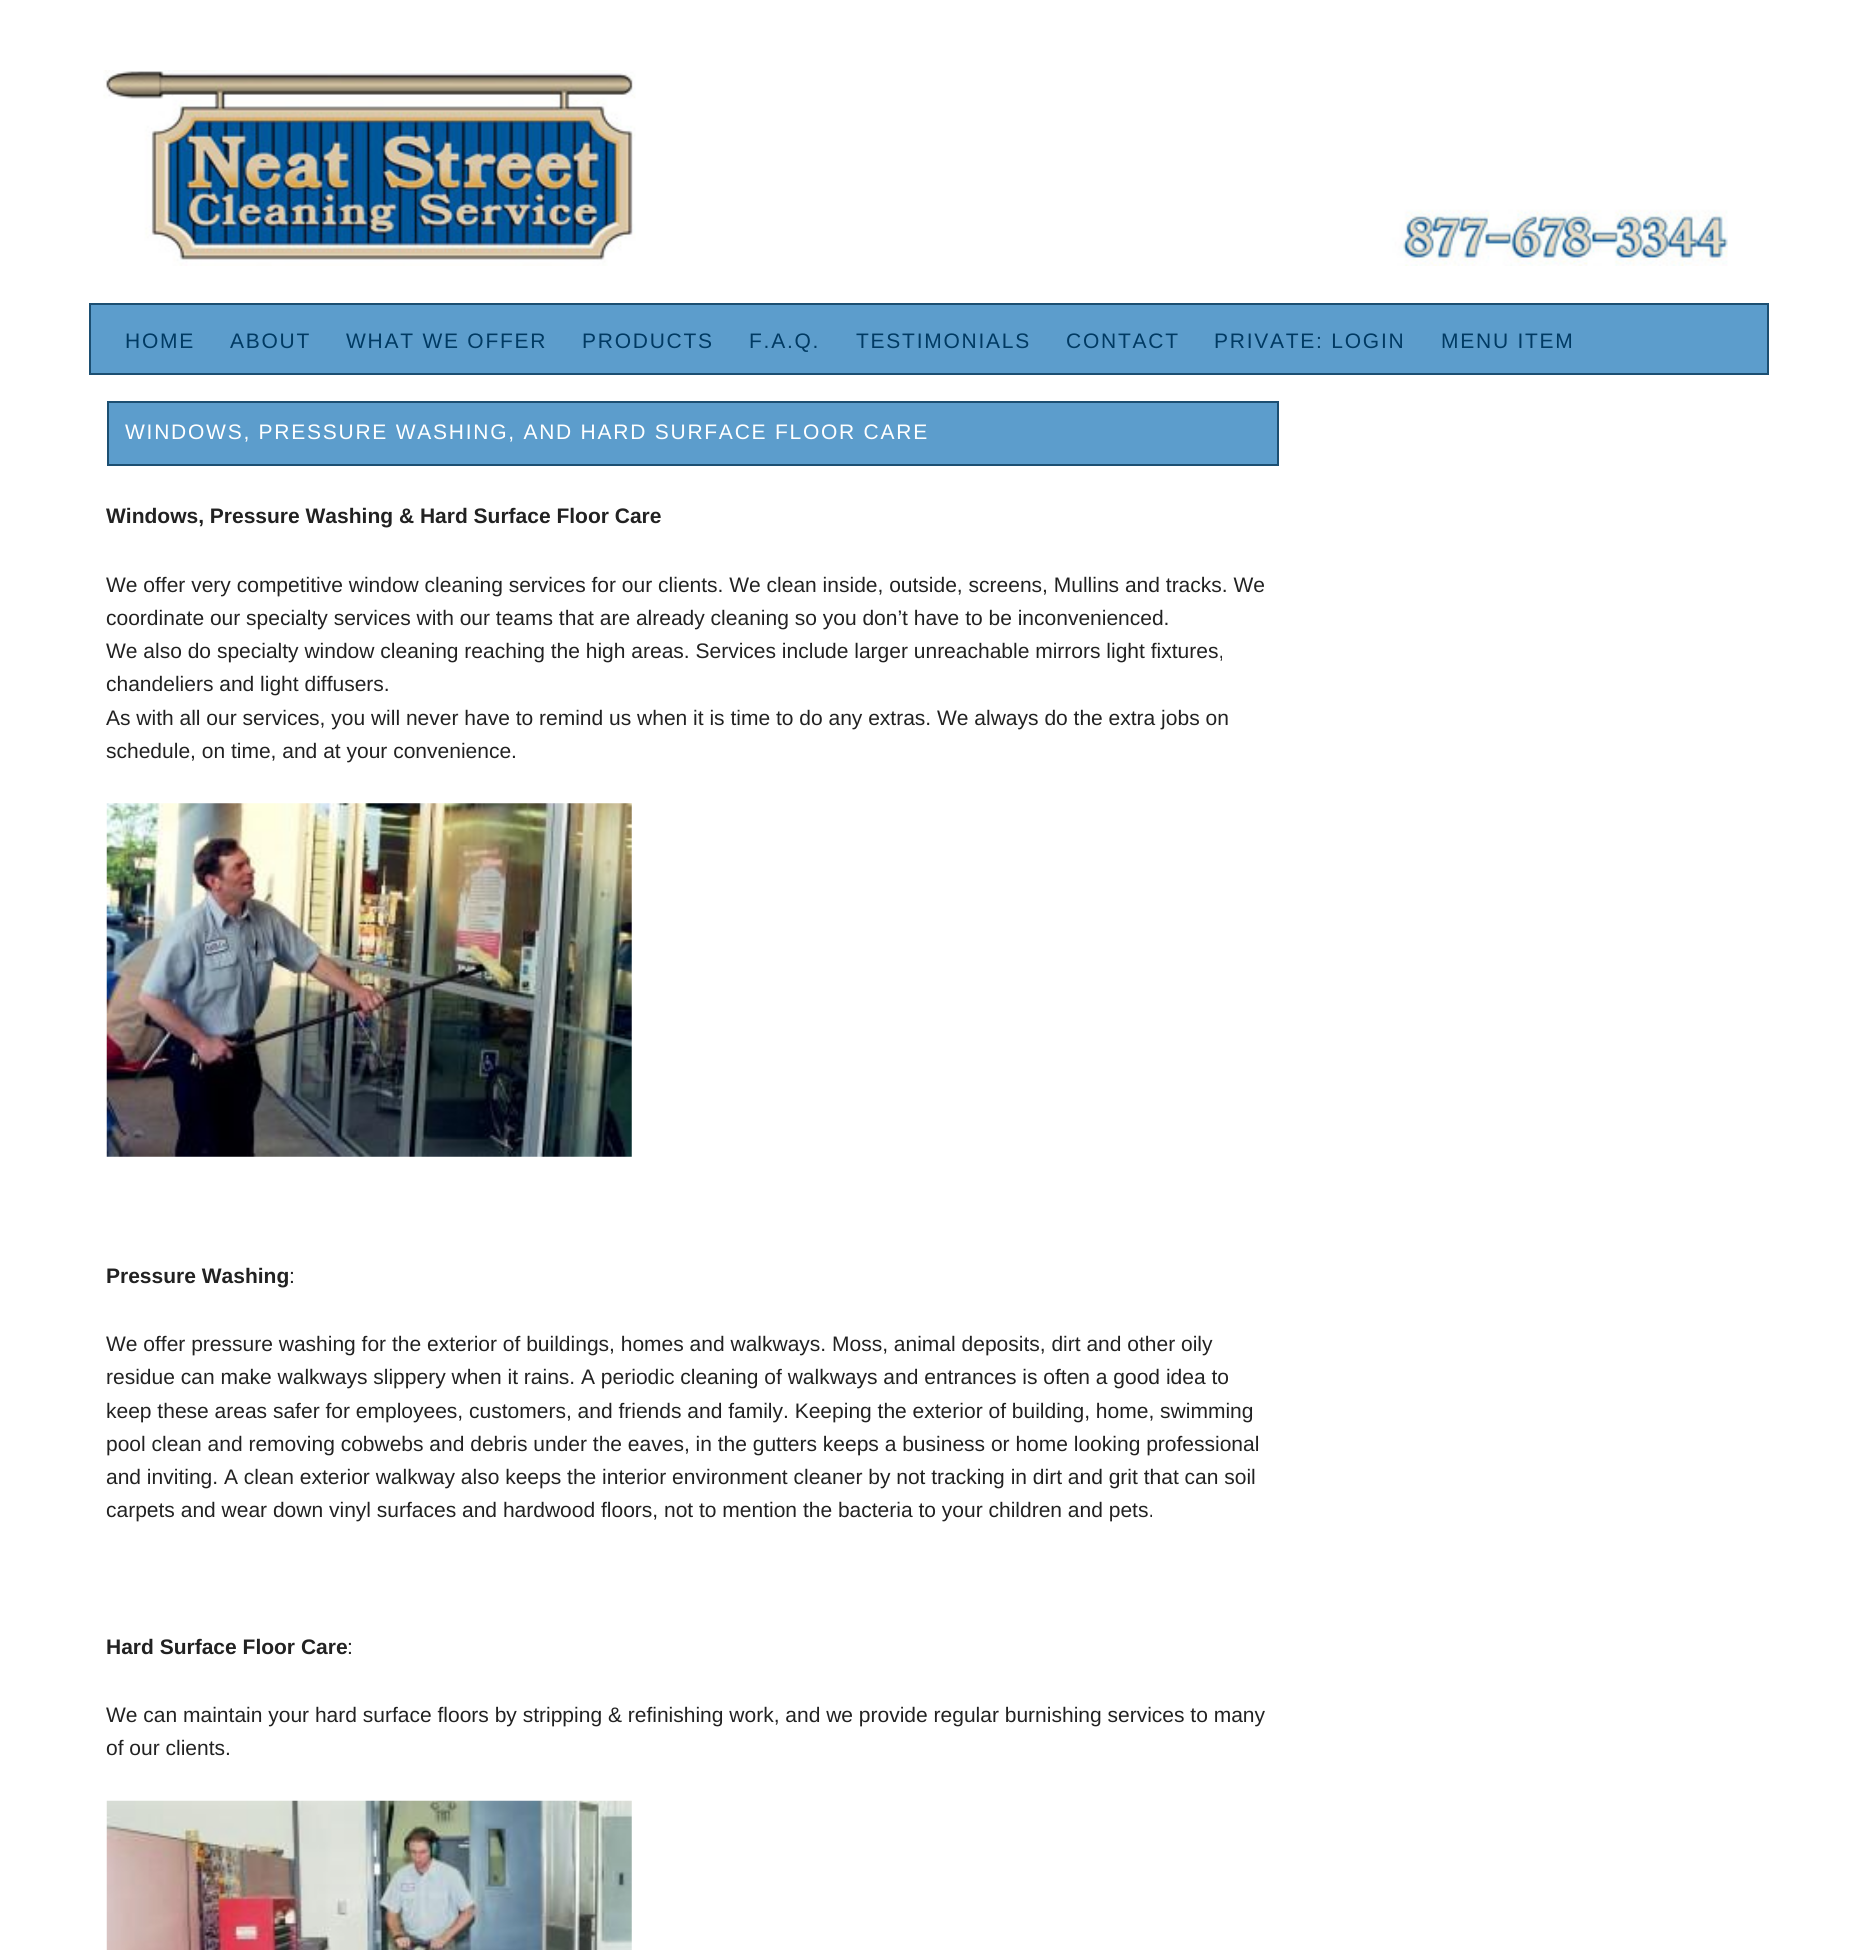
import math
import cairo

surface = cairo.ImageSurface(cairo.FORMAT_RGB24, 1856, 1950)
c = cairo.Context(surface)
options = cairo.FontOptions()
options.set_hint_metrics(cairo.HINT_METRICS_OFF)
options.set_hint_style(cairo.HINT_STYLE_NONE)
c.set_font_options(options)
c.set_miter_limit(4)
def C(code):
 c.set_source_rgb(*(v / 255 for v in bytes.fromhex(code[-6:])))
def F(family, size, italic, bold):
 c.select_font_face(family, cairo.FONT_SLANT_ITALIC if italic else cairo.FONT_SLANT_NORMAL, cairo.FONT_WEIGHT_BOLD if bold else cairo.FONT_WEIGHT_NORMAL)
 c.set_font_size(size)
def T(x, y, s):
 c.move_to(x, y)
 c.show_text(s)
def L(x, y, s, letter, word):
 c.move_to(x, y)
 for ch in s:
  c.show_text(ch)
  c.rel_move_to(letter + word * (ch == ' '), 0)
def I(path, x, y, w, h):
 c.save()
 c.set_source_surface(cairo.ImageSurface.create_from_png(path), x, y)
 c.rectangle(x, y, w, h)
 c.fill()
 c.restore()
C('ffffff')
c.paint()
I('1.png',103,70,1625,196)
C('5c9dcc')
c.rectangle(90,304,1678,70)
c.fill_preserve()
C('1c4f72')
c.stroke()
F('Liberation Sans',21,0,0)
C('003a63')
L(125,348,'HOME',1.75,0)
L(230,348,'ABOUT',1.75,0)
L(346,348,'WHAT WE OFFER',1.75,0)
L(582,348,'PRODUCTS',1.75,0)
L(749,348,'F.A.Q.',1.75,0)
L(856,348,'TESTIMONIALS',1.75,0)
L(1066,348,'CONTACT',1.75,0)
L(1214,348,'PRIVATE: LOGIN',1.75,0)
L(1441,348,'MENU ITEM',1.75,0)
C('5c9dcc')
c.rectangle(108,402,1170,63)
c.fill_preserve()
C('1c4f72')
c.stroke()
C('ffffff')
L(125,439,'WINDOWS, PRESSURE WASHING, AND HARD SURFACE FLOOR CARE',1.75,0)
F('Liberation Sans',21,0,1)
C('222222')
T(106,523,'Windows, Pressure Washing & Hard Surface Floor Care')
F('Liberation Sans',21,0,0)
T(106,592,'We offer very competitive window cleaning services for our clients. We clean inside, outside, screens, Mullins and tracks. We')
T(106,625,'coordinate our specialty services with our teams that are already cleaning so you don’t have to be inconvenienced.')
T(106,658,'We also do specialty window cleaning reaching the high areas. Services include larger unreachable mirrors light fixtures,')
T(106,691,'chandeliers and light diffusers.')
T(106,725,'As with all our services, you will never have to remind us when it is time to do any extras. We always do the extra jobs on')
T(106,758,'schedule, on time, and at your convenience.')
I('2.png',106,803,526,354)
F('Liberation Sans',21,0,1)
T(106,1283,'Pressure Washing')
F('Liberation Sans',21,0,0)
T(289,1283,':')
T(106,1351,'We offer pressure washing for the exterior of buildings, homes and walkways. Moss, animal deposits, dirt and other oily')
T(106,1384,'residue can make walkways slippery when it rains. A periodic cleaning of walkways and entrances is often a good idea to')
T(106,1418,'keep these areas safer for employees, customers, and friends and family. Keeping the exterior of building, home, swimming')
T(106,1451,'pool clean and removing cobwebs and debris under the eaves, in the gutters keeps a business or home looking professional')
T(106,1484,'and inviting. A clean exterior walkway also keeps the interior environment cleaner by not tracking in dirt and grit that can soil')
T(106,1517,'carpets and wear down vinyl surfaces and hardwood floors, not to mention the bacteria to your children and pets.')
F('Liberation Sans',21,0,1)
T(106,1654,'Hard Surface Floor Care')
F('Liberation Sans',21,0,0)
T(347,1654,':')
T(106,1722,'We can maintain your hard surface floors by stripping & refinishing work, and we provide regular burnishing services to many')
T(106,1755,'of our clients.')
I('3.png',106,1800,526,150)
surface.write_to_png('o.png')
